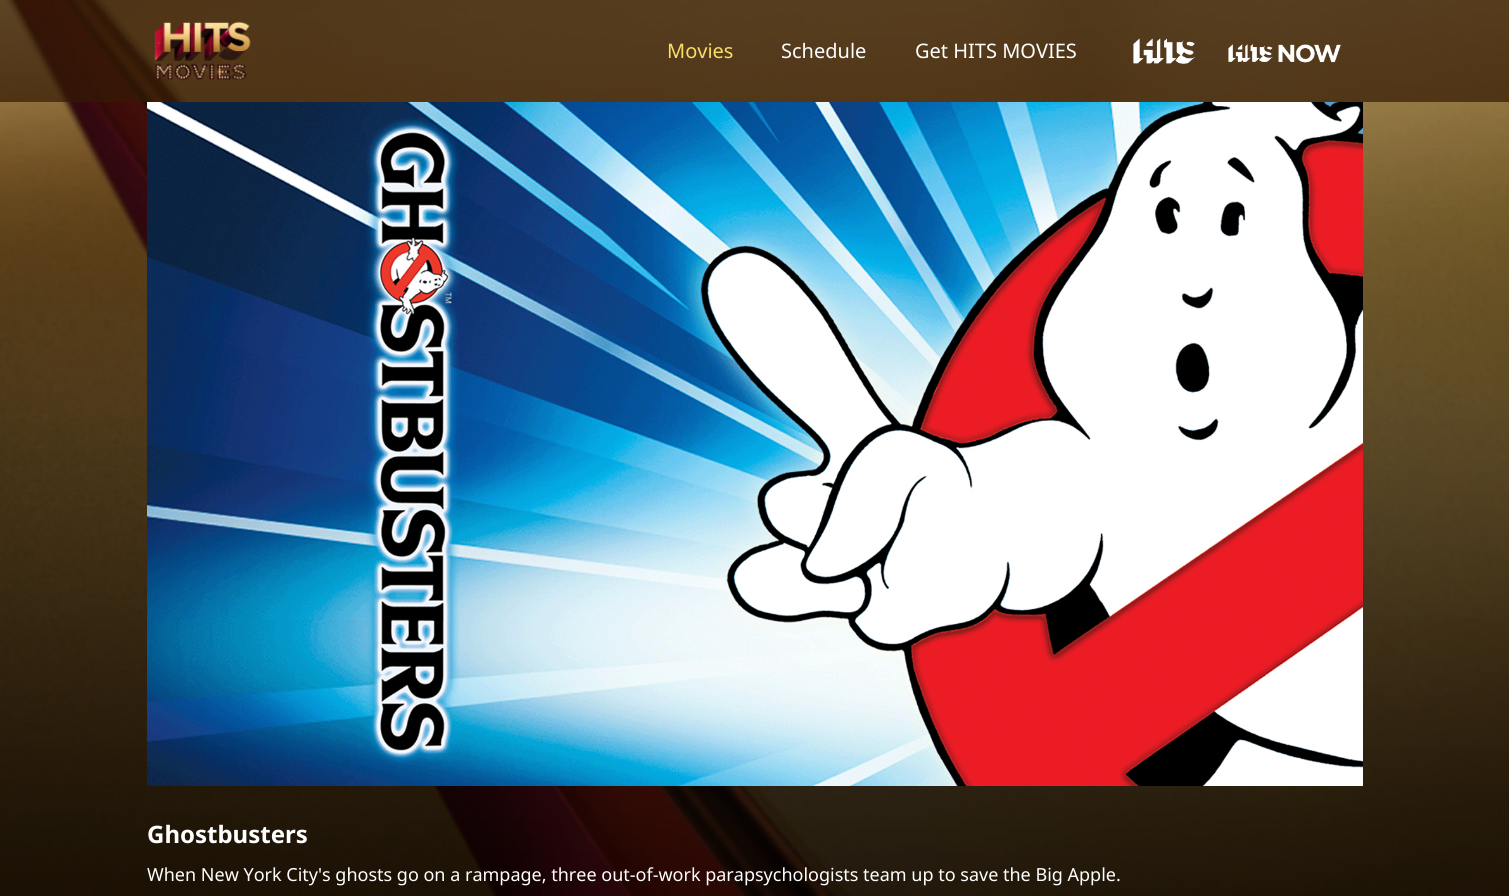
import math
import cairo

surface = cairo.ImageSurface(cairo.FORMAT_RGB24, 1509, 896)
c = cairo.Context(surface)
options = cairo.FontOptions()
options.set_hint_metrics(cairo.HINT_METRICS_OFF)
options.set_hint_style(cairo.HINT_STYLE_NONE)
c.set_font_options(options)
c.set_miter_limit(4)
def C(code):
 c.set_source_rgb(*(v / 255 for v in bytes.fromhex(code[-6:])))
def F(family, size, italic, bold):
 c.select_font_face(family, cairo.FONT_SLANT_ITALIC if italic else cairo.FONT_SLANT_NORMAL, cairo.FONT_WEIGHT_BOLD if bold else cairo.FONT_WEIGHT_NORMAL)
 c.set_font_size(size)
def T(x, y, s):
 c.move_to(x, y)
 c.show_text(s)
def R(x, y, w, h):
 c.rectangle(x, y, w, h)
 c.fill()
def I(path, x, y, w, h):
 c.save()
 c.set_source_surface(cairo.ImageSurface.create_from_png(path), x, y)
 c.rectangle(x, y, w, h)
 c.fill()
 c.restore()
C('ffffff')
c.paint()
I('1.png',0,0,1509,896)
c.set_source_rgba(0.204,0.102,0.012,0.7)
R(0,0,1509,102)
I('2.png',154,21,97,60)
F('Noto Sans',20,0,0)
C('fbdc67')
T(667,58,'Movies')
C('ffffff')
T(781,58,'Schedule')
T(915,58,'Get HITS MOVIES')
I('3.png',1133,38,62,26)
I('4.png',1228,44,113,19)
I('5.png',147,102,1216,684)
F('Noto Sans',24,0,1)
T(147,843,'Ghostbusters')
F('Noto Sans',18,0,0)
T(147,881,'When New York City\'s ghosts go on a rampage, three out-of-work parapsychologists team up to save the Big Apple.')
surface.write_to_png('o.png')
